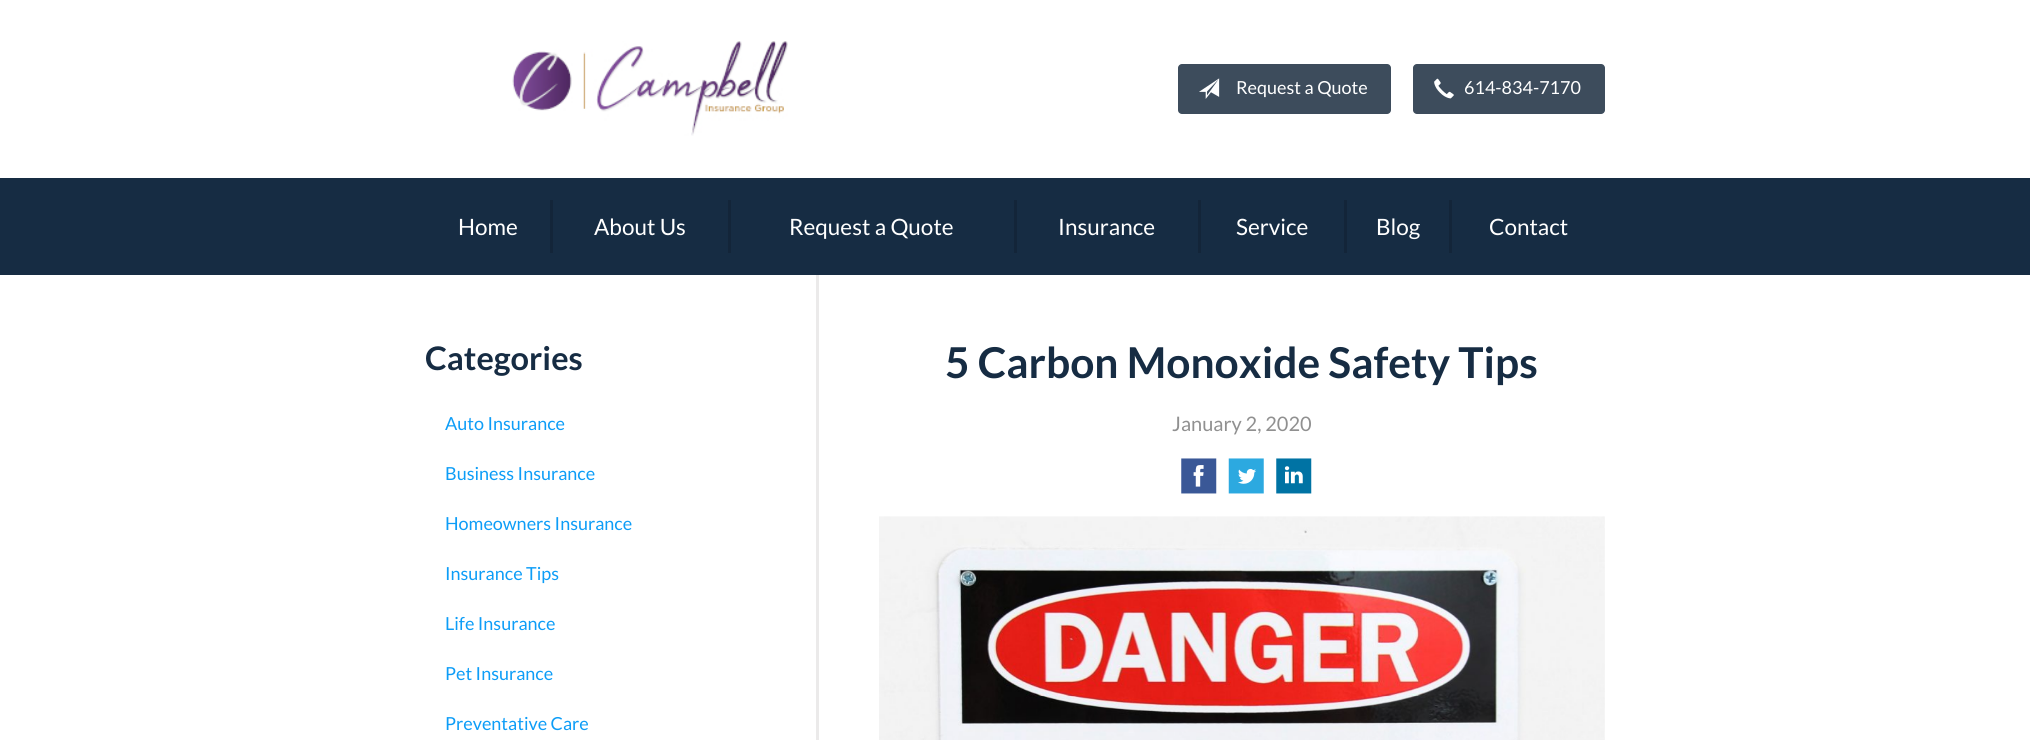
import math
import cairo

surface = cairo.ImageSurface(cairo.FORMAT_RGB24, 2030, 740)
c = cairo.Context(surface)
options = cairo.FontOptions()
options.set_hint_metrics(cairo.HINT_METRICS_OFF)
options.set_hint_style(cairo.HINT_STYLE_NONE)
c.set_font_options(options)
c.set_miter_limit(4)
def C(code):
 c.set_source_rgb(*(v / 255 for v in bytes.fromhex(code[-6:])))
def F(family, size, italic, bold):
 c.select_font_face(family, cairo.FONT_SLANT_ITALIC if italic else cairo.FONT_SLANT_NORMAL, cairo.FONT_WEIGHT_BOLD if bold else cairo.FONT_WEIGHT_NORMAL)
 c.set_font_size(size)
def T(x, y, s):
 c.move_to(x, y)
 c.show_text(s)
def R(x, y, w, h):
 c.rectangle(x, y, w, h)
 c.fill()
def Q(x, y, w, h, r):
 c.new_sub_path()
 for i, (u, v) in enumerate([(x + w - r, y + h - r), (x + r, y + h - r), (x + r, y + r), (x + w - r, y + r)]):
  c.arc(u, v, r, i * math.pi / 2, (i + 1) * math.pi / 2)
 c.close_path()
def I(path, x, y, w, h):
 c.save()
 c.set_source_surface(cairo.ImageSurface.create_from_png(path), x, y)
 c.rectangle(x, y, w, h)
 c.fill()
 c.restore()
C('162c43')
c.paint()
C('ffffff')
R(0,0,2030,178)
I('1.png',512,41,276,95)
C('3d4c5c')
Q(1178,64,213,50,4)
c.fill()
I('2.png',1199,78,21,21)
F('Lato',18,0,0)
C('ffffff')
T(1236,94,'Request a Quote')
C('3d4c5c')
Q(1413,64,192,50,4)
c.fill()
I('3.png',1434,78,20,21)
C('ffffff')
T(1464,94,'614-834-7170')
C('132539')
R(550,200,3,53)
F('Lato',22.5,0,0)
C('ffffff')
T(458,235,'Home')
C('132539')
R(728,200,3,53)
C('ffffff')
T(594,235,'About Us')
C('132539')
R(1014,200,3,53)
C('ffffff')
T(789,235,'Request a Quote')
C('132539')
R(1198,200,3,53)
C('ffffff')
T(1058,235,'Insurance')
C('132539')
R(1344,200,3,53)
C('ffffff')
T(1236,235,'Service')
C('132539')
R(1449,200,3,53)
C('ffffff')
T(1376,235,'Blog')
T(1489,235,'Contact')
R(0,275,2030,465)
C('ebeaea')
R(816,275,3,465)
F('Lato',32.5,0,1)
C('162c43')
T(425,370,'Categories')
F('Lato',18,0,0)
C('0d9df7')
T(445,430,'Auto Insurance')
T(445,480,'Business Insurance')
T(445,530,'Homeowners Insurance')
T(445,580,'Insurance Tips')
T(445,630,'Life Insurance')
T(445,680,'Pet Insurance')
T(445,730,'Preventative Care')
F('Lato',42.5,0,1)
C('162c43')
T(945,378,'5 Carbon Monoxide Safety Tips')
F('Lato',20,0,0)
C('909090')
T(1172,431,'January 2, 2020')
I('4.png',1181,458,36,36)
I('5.png',1228,458,36,36)
I('6.png',1276,458,36,36)
I('7.png',879,516,726,224)
surface.write_to_png('o.png')
